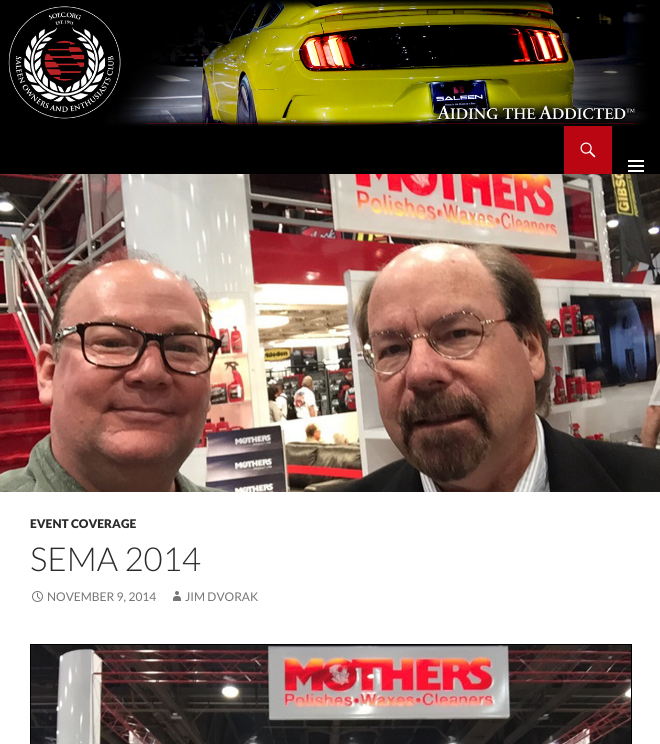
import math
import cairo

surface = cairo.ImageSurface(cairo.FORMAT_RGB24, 660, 744)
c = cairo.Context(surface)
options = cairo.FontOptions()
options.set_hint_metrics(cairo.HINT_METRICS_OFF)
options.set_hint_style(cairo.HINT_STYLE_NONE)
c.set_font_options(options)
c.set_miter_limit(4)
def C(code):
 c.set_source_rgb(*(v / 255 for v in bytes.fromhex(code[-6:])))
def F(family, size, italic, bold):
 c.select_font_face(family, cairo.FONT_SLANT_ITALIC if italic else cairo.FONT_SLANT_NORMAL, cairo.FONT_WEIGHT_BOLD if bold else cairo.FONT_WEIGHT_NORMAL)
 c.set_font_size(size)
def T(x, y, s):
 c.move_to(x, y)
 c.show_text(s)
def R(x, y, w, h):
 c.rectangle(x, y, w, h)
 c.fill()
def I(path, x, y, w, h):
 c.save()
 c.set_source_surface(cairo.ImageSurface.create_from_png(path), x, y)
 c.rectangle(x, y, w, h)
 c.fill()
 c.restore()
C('ffffff')
c.paint()
I('1.png',0,0,660,126)
C('000000')
R(0,126,660,48)
C('ba0612')
R(564,126,48,48)
I('2.png',580,142,16,16)
I('3.png',628,160,16,12)
I('4.png',0,174,660,318)
F('Lato Black',12,0,0)
C('2b2b2b')
T(30,528,'EVENT COVERAGE')
F('Lato Light',33,0,0)
T(30,571,'SEMA 2014')
I('5.png',32,591,11,11)
F('Lato',12,0,0)
C('767676')
T(47,601,'NOVEMBER 9, 2014')
I('6.png',173,591,8,10)
T(185,601,'JIM DVORAK')
c.rectangle(30.5,644.5,601,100)
C('000000')
c.set_line_width(1)
c.stroke()
I('7.png',31,645,600,99)
surface.write_to_png('o.png')
